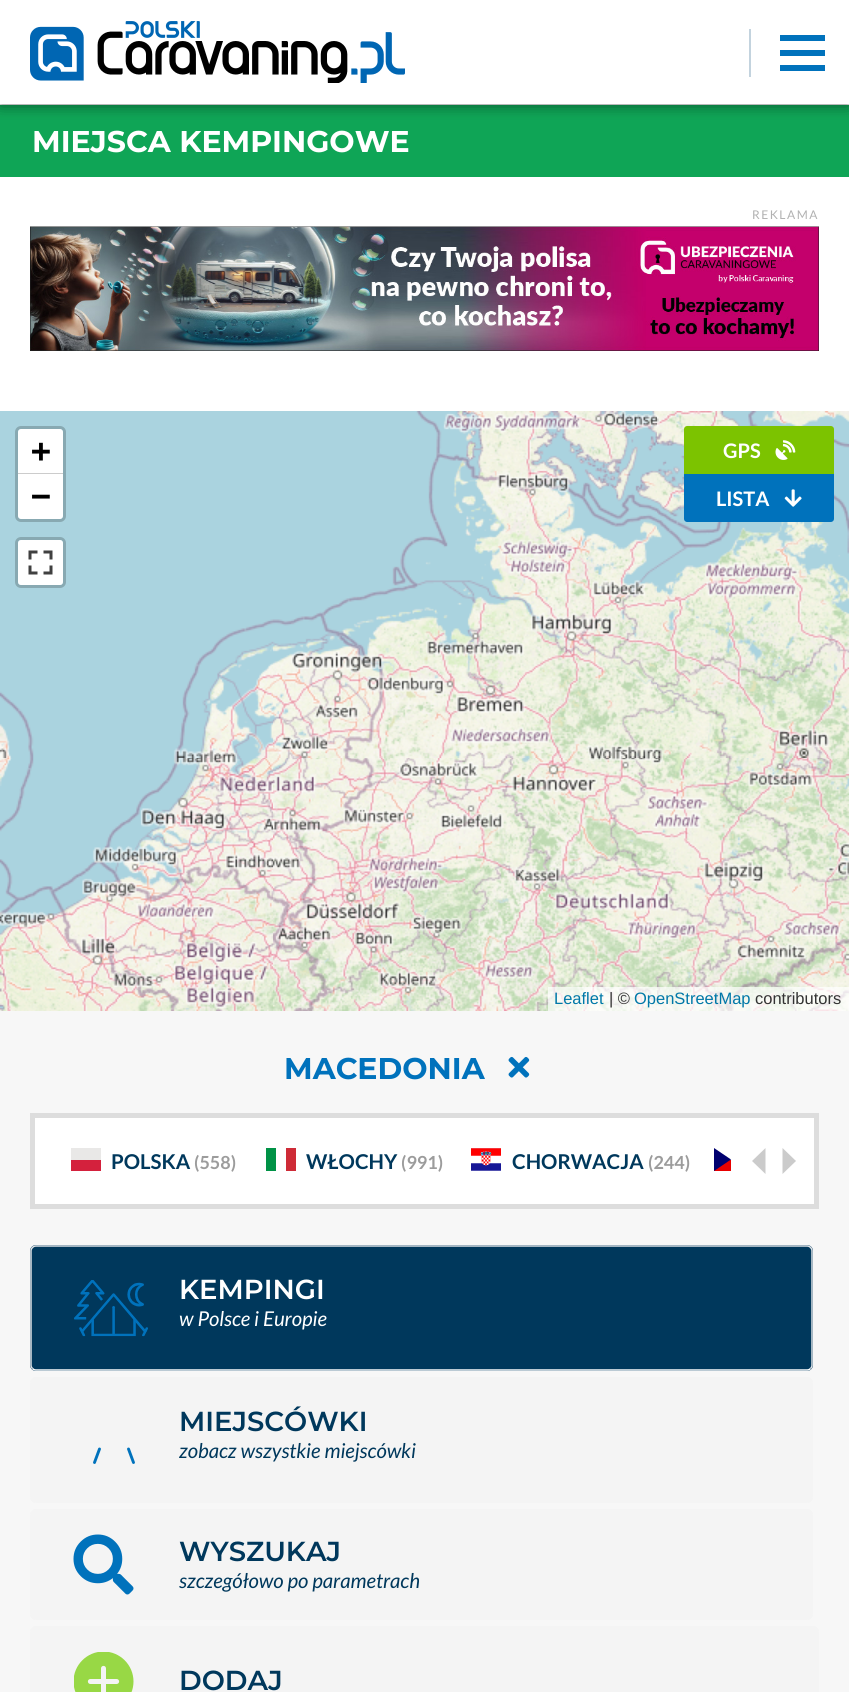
import math
import cairo

surface = cairo.ImageSurface(cairo.FORMAT_RGB24, 849, 1692)
c = cairo.Context(surface)
options = cairo.FontOptions()
options.set_hint_metrics(cairo.HINT_METRICS_OFF)
options.set_hint_style(cairo.HINT_STYLE_NONE)
c.set_font_options(options)
c.set_miter_limit(4)
def C(code):
 c.set_source_rgb(*(v / 255 for v in bytes.fromhex(code[-6:])))
def F(family, size, italic, bold):
 c.select_font_face(family, cairo.FONT_SLANT_ITALIC if italic else cairo.FONT_SLANT_NORMAL, cairo.FONT_WEIGHT_BOLD if bold else cairo.FONT_WEIGHT_NORMAL)
 c.set_font_size(size)
def T(x, y, s):
 c.move_to(x, y)
 c.show_text(s)
def L(x, y, s, letter, word):
 c.move_to(x, y)
 for ch in s:
  c.show_text(ch)
  c.rel_move_to(letter + word * (ch == ' '), 0)
def R(x, y, w, h):
 c.rectangle(x, y, w, h)
 c.fill()
def Q(x, y, w, h, r):
 c.new_sub_path()
 for i, (u, v) in enumerate([(x + w - r, y + h - r), (x + r, y + h - r), (x + r, y + r), (x + w - r, y + r)]):
  c.arc(u, v, r, i * math.pi / 2, (i + 1) * math.pi / 2)
 c.close_path()
def S(x, y, w, h, r, blur, alpha):
 c.push_group_with_content(cairo.CONTENT_ALPHA)
 c.set_operator(cairo.OPERATOR_SOURCE)
 for i in range(15, -16, -2):
  e = blur * i / 6
  if min(w, h) + 2 * e > 0:
   c.set_source_rgba(0, 0, 0, alpha * math.erfc((i - 1) / 8.5) / 2)
   Q(x - e, y - e, w + 2 * e, h + 2 * e, max(0, min(r + e + blur * .6, min(w, h) / 2 + e)))
   c.fill()
 c.mask(c.pop_group())
def I(path, x, y, w, h):
 c.save()
 c.set_source_surface(cairo.ImageSurface.create_from_png(path), x, y)
 c.rectangle(x, y, w, h)
 c.fill()
 c.restore()
C('ffffff')
c.paint()
C('0fa556')
R(0,105,849,72)
C('000000')
S(0,0,849,104,0,7.5,.3)
S(0,0,849,104,0,7.5,.3)
C('ffffff')
R(0,0,849,104)
I('1.png',30,21,375,62)
C('c3d3de')
R(749,29,2,48)
C('0072bc')
R(780,35,45,6)
R(780,50,45,6)
R(780,65,45,6)
F('Montserrat',30,0,1)
C('ffffff')
T(32,152,'MIEJSCA KEMPINGOWE')
F('Lato',12,0,0)
C('b1b1b1')
L(752,219,'REKLAMA',1.5,0)
I('2.png',30,226,789,125)
C('f7f7f7')
R(0,1011,849,681)
I('3.png',0,411,273,347)
I('4.png',273,411,384,347)
I('5.png',657,411,192,347)
I('6.png',0,758,273,253)
I('7.png',273,758,384,253)
I('8.png',657,758,192,253)
Q(16.5,427.5,48,93,4.5)
C('88a9b2')
c.set_line_width(3)
c.stroke()
C('ffffff')
c.new_path()
c.move_to(21,429)
c.line_to(60,429)
c.curve_to(61.5,429,63,430.5,63,432)
c.line_to(63,474)
c.line_to(18,474)
c.line_to(18,432)
c.curve_to(18,430.5,19.5,429,21,429)
c.close_path()
c.fill()
C('cccccc')
R(18,473,45,1)
F('DejaVu Sans Mono',33,0,1)
C('000000')
T(31,462,'+')
C('ffffff')
c.new_path()
c.move_to(18,474)
c.line_to(63,474)
c.line_to(63,516)
c.curve_to(63,517.5,61.5,519,60,519)
c.line_to(21,519)
c.curve_to(19.5,519,18,517.5,18,516)
c.close_path()
c.fill()
C('000000')
T(31,507,'−')
Q(16.5,538.5,48,48,4.5)
C('88a9b2')
c.stroke()
C('ffffff')
Q(18,540,45,45,3)
c.fill()
I('9.png',28,550,25,25)
c.set_source_rgba(1,1,1,0.7)
R(548,987,301,24)
F('Liberation Sans',16.5,0,0)
C('0078a8')
T(554,1004,'Leaflet')
C('333333')
T(609,1004,'| ©')
C('0078a8')
T(634,1004,'OpenStreetMap')
C('333333')
T(755,1004,'contributors')
C('7cc300')
c.new_path()
c.move_to(687,426)
c.line_to(831,426)
c.curve_to(832.5,426,834,427.5,834,429)
c.line_to(834,474)
c.line_to(684,474)
c.line_to(684,429)
c.curve_to(684,427.5,685.5,426,687,426)
c.close_path()
c.fill()
F('Lato',20,0,1)
C('ffffff')
T(723,458,'GPS')
I('10.png',775,440,21,20)
C('0072bc')
c.new_path()
c.move_to(684,474)
c.line_to(834,474)
c.line_to(834,519)
c.curve_to(834,520.5,832.5,522,831,522)
c.line_to(687,522)
c.curve_to(685.5,522,684,520.5,684,519)
c.close_path()
c.fill()
C('ffffff')
T(716,506,'LISTA')
I('11.png',784,489,18,18)
F('Montserrat',30,0,1)
C('0072bc')
T(284,1079,'MACEDONIA')
I('12.png',508,1056,22,22)
C('ffffff')
c.rectangle(32.5,1115.5,784,91)
c.fill_preserve()
C('dddddd')
c.set_line_width(5)
c.stroke()
C('e9e8e7')
R(71,1148,30,12)
C('d4213d')
R(71,1160,30,11)
F('Lato',20.4,0,1)
C('00385c')
T(111,1169,'POLSKA')
F('Lato',18,0,1)
C('9c9c9c')
T(194,1169,'(558)')
C('009246')
R(266,1148,10,23)
C('ce2b37')
R(286,1148,10,23)
F('Lato',20.4,0,1)
C('00385c')
T(306,1169,'WŁOCHY')
F('Lato',18,0,1)
C('9c9c9c')
T(401,1169,'(991)')
I('13.png',471,1148,30,23)
F('Lato',20.4,0,1)
C('00385c')
T(512,1169,'CHORWACJA')
F('Lato',18,0,1)
C('9c9c9c')
T(648,1169,'(244)')
C('e80000')
R(714,1160,17,11)
C('00006f')
c.set_fill_rule(cairo.FILL_RULE_EVEN_ODD)
c.new_path()
c.move_to(714,1148)
c.line_to(731,1159.5)
c.line_to(714,1171)
c.close_path()
c.fill()
C('cbcbcb')
c.set_fill_rule(cairo.FILL_RULE_WINDING)
c.new_path()
c.move_to(752,1161)
c.line_to(765.5,1174)
c.line_to(765.5,1148)
c.close_path()
c.move_to(796,1161)
c.line_to(782.5,1148)
c.line_to(782.5,1174)
c.close_path()
c.fill()
C('00385c')
Q(30,1245,783,126,6)
c.fill()
c.new_path()
c.move_to(810.5,1368.5)
c.curve_to(809.5,1369.5,808.5,1370,807,1370)
c.line_to(36,1370)
c.curve_to(34.5,1370,33.5,1369.5,32.5,1368.5)
C('ffffff')
c.set_line_width(1.5)
c.stroke()
c.new_path()
c.move_to(32.5,1368.5)
c.curve_to(31.5,1367.5,31,1366.5,31,1365)
c.line_to(31,1251)
c.curve_to(31,1249.5,31.5,1248.5,32.5,1247.5)
c.curve_to(33.5,1246.5,34.5,1246,36,1246)
c.line_to(807,1246)
c.curve_to(808.5,1246,809.5,1246.5,810.5,1247.5)
c.curve_to(811.5,1248.5,812,1249.5,812,1251)
c.line_to(812,1365)
c.curve_to(812,1366.5,811.5,1367.5,810.5,1368.5)
C('dee2e6')
c.stroke()
I('14.png',74,1280,74,57)
F('Montserrat SemiBold',27.5,0,0)
C('ffffff')
T(179,1299,'KEMPINGI')
F('Lato',20.4,1,0)
T(179,1326,'w Polsce i Europie')
C('f4f4f4')
Q(30,1377,783,126,6)
c.fill()
c.new_path()
c.move_to(99.5,1449)
c.line_to(94.5,1462.5)
c.move_to(128.5,1449)
c.line_to(133.5,1462.5)
C('0072bc')
c.set_line_width(2.9)
c.set_line_cap(cairo.LINE_CAP_ROUND)
c.set_line_join(cairo.LINE_JOIN_ROUND)
c.stroke()
F('Montserrat SemiBold',27.5,0,0)
C('00385c')
T(179,1431,'MIEJSCÓWKI')
F('Lato',20.4,1,0)
T(179,1458,'zobacz wszystkie miejscówki')
C('f4f4f4')
Q(30,1509,783,111,6)
c.fill()
I('15.png',73,1534,61,61)
F('Montserrat SemiBold',27.5,0,0)
C('00385c')
T(179,1561,'WYSZUKAJ')
F('Lato',20.4,1,0)
T(179,1588,'szczegółowo po parametrach')
C('f4f4f4')
Q(30,1626,789,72,6)
c.fill()
I('16.png',74,1652,60,40)
F('Montserrat SemiBold',27.5,0,0)
C('00385c')
T(179,1690,'DODAJ')
surface.write_to_png('o.png')
